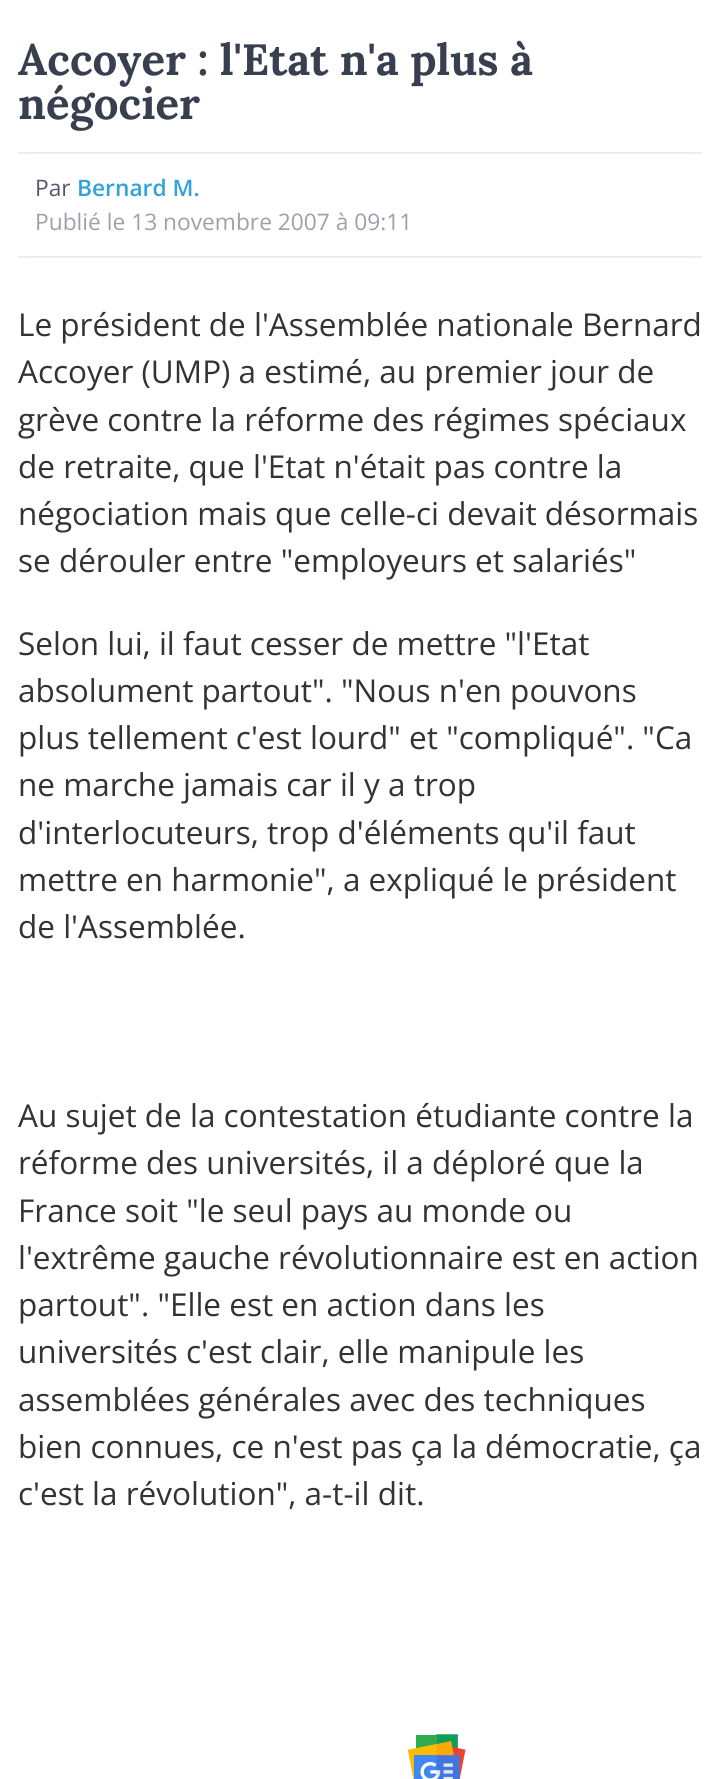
import math
import cairo

surface = cairo.ImageSurface(cairo.FORMAT_RGB24, 718, 1779)
c = cairo.Context(surface)
options = cairo.FontOptions()
options.set_hint_metrics(cairo.HINT_METRICS_OFF)
options.set_hint_style(cairo.HINT_STYLE_NONE)
c.set_font_options(options)
c.set_miter_limit(4)
def C(code):
 c.set_source_rgb(*(v / 255 for v in bytes.fromhex(code[-6:])))
def F(family, size, italic, bold):
 c.select_font_face(family, cairo.FONT_SLANT_ITALIC if italic else cairo.FONT_SLANT_NORMAL, cairo.FONT_WEIGHT_BOLD if bold else cairo.FONT_WEIGHT_NORMAL)
 c.set_font_size(size)
def T(x, y, s):
 c.move_to(x, y)
 c.show_text(s)
def R(x, y, w, h):
 c.rectangle(x, y, w, h)
 c.fill()
def I(path, x, y, w, h):
 c.save()
 c.set_source_surface(cairo.ImageSurface.create_from_png(path), x, y)
 c.rectangle(x, y, w, h)
 c.fill()
 c.restore()
C('ffffff')
c.paint()
F('Lora',43.75,0,1)
C('383f4e')
T(18,75,'Accoyer : l\'Etat n\'a plus à')
T(18,119,'négocier')
C('e8edf0')
R(18,152,684,2)
R(18,256,684,2)
F('Open Sans',22.75,0,0)
C('53596c')
T(35,196,'Par')
F('Open Sans SemiBold',22.75,0,0)
C('32a2dc')
T(77,196,'Bernard M.')
F('Open Sans',22.75,0,0)
C('9ca0ac')
T(35,230,'Publié le 13 novembre 2007 à 09:11')
F('Open Sans',31.5,0,0)
C('333333')
T(18,336,'Le président de l\'Assemblée nationale Bernard')
T(18,383,'Accoyer (UMP) a estimé, au premier jour de')
T(18,431,'grève contre la réforme des régimes spéciaux')
T(18,478,'de retraite, que l\'Etat n\'était pas contre la')
T(18,525,'négociation mais que celle-ci devait désormais')
T(18,572,'se dérouler entre "employeurs et salariés"')
T(18,655,'Selon lui, il faut cesser de mettre "l\'Etat')
T(18,702,'absolument partout". "Nous n\'en pouvons')
T(18,749,'plus tellement c\'est lourd" et "compliqué". "Ca')
T(18,796,'ne marche jamais car il y a trop')
T(18,844,'d\'interlocuteurs, trop d\'éléments qu\'il faut')
T(18,891,'mettre en harmonie", a expliqué le président')
T(18,938,'de l\'Assemblée.')
T(18,1127,'Au sujet de la contestation étudiante contre la')
T(18,1174,'réforme des universités, il a déploré que la')
T(18,1222,'France soit "le seul pays au monde ou')
T(18,1269,'l\'extrême gauche révolutionnaire est en action')
T(18,1316,'partout". "Elle est en action dans les')
T(18,1363,'universités c\'est clair, elle manipule les')
T(18,1411,'assemblées générales avec des techniques')
T(18,1458,'bien connues, ce n\'est pas ça la démocratie, ça')
T(18,1505,'c\'est la révolution", a-t-il dit.')
I('1.png',408,1734,58,45)
surface.write_to_png('o.png')
